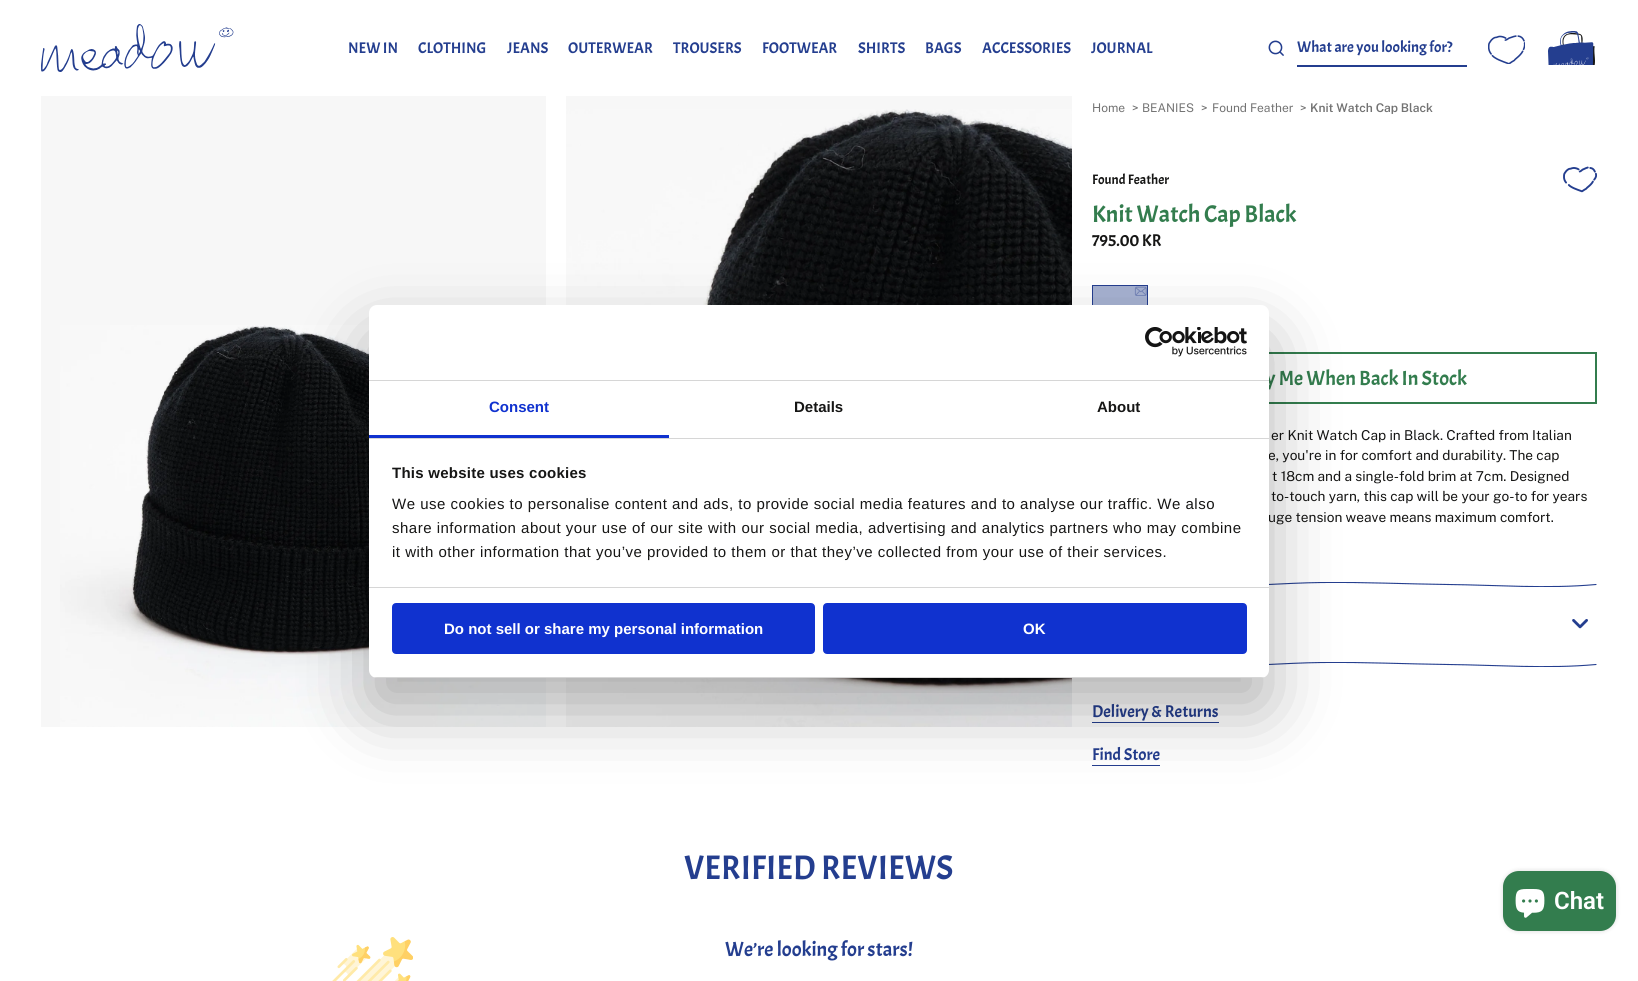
import math
import cairo

surface = cairo.ImageSurface(cairo.FORMAT_RGB24, 1638, 981)
c = cairo.Context(surface)
options = cairo.FontOptions()
options.set_hint_metrics(cairo.HINT_METRICS_OFF)
options.set_hint_style(cairo.HINT_STYLE_NONE)
c.set_font_options(options)
c.set_miter_limit(4)
def C(code):
 c.set_source_rgb(*(v / 255 for v in bytes.fromhex(code[-6:])))
def F(family, size, italic, bold):
 c.select_font_face(family, cairo.FONT_SLANT_ITALIC if italic else cairo.FONT_SLANT_NORMAL, cairo.FONT_WEIGHT_BOLD if bold else cairo.FONT_WEIGHT_NORMAL)
 c.set_font_size(size)
def T(x, y, s):
 c.move_to(x, y)
 c.show_text(s)
def L(x, y, s, letter, word):
 c.move_to(x, y)
 for ch in s:
  c.show_text(ch)
  c.rel_move_to(letter + word * (ch == ' '), 0)
def R(x, y, w, h):
 c.rectangle(x, y, w, h)
 c.fill()
def Q(x, y, w, h, r):
 c.new_sub_path()
 for i, (u, v) in enumerate([(x + w - r, y + h - r), (x + r, y + h - r), (x + r, y + r), (x + w - r, y + r)]):
  c.arc(u, v, r, i * math.pi / 2, (i + 1) * math.pi / 2)
 c.close_path()
def S(x, y, w, h, r, blur, alpha):
 c.push_group_with_content(cairo.CONTENT_ALPHA)
 c.set_operator(cairo.OPERATOR_SOURCE)
 for i in range(15, -16, -2):
  e = blur * i / 6
  if min(w, h) + 2 * e > 0:
   c.set_source_rgba(0, 0, 0, alpha * math.erfc((i - 1) / 8.5) / 2)
   Q(x - e, y - e, w + 2 * e, h + 2 * e, max(0, min(r + e + blur * .6, min(w, h) / 2 + e)))
   c.fill()
 c.mask(c.pop_group())
def I(path, x, y, w, h):
 c.save()
 c.set_source_surface(cairo.ImageSurface.create_from_png(path), x, y)
 c.rectangle(x, y, w, h)
 c.fill()
 c.restore()
C('ffffff')
c.paint()
I('1.png',41,24,193,48)
F('Acme',15.4,0,0)
C('243e8f')
T(348,53,'NEW IN')
T(418,53,'CLOTHING')
T(507,53,'JEANS')
T(568,53,'OUTERWEAR')
T(673,53,'TROUSERS')
T(762,53,'FOOTWEAR')
T(858,53,'SHIRTS')
T(925,53,'BAGS')
T(982,53,'ACCESSORIES')
T(1091,53,'JOURNAL')
I('2.png',1268,40,16,16)
R(1297,65,170,2)
T(1297,52,'What are you looking for?')
I('3.png',1488,35,37,29)
I('4.png',1548,31,47,34)
C('f7f7f7')
R(41,96,505,631)
I('5.png',60,325,486,402)
R(566,96,506,13)
I('6.png',566,109,506,618)
F('Public Sans',12,0,0)
C('737373')
T(1092,112,'Home')
T(1132,112,'>')
T(1142,112,'BEANIES')
T(1201,112,'>')
T(1212,112,'Found Feather')
T(1300,112,'>')
F('Public Sans SemiBold',12,0,0)
T(1310,112,'Knit Watch Cap Black')
F('Acme',13.65,0,0)
C('161615')
T(1092,184,'Found Feather')
I('7.png',1563,166,34,27)
F('Acme',24,0,0)
C('337d4e')
T(1092,222,'Knit Watch Cap Black')
F('Acme',17,0,0)
C('161615')
T(1092,246,'795.00 KR')
C('a7b2d2')
R(1093,286,54,19)
c.rectangle(1092.5,285.5,55,39)
C('243e8f')
c.set_line_width(1)
c.stroke()
I('8.png',1134,286,13,10)
c.rectangle(1093,353,503,50)
C('337d4e')
c.set_line_width(2)
c.stroke()
F('Acme',20.5,0,0)
T(1266,385,'y Me When Back In Stock')
F('Public Sans',13.65,0,0)
C('161615')
T(1271,440,'er Knit Watch Cap in Black. Crafted from Italian')
T(1268,460,'e, you\'re in for comfort and durability. The cap')
T(1272,481,'t 18cm and a single-fold brim at 7cm. Designed')
T(1271,501,'to-touch yarn, this cap will be your go-to for years')
T(1268,522,'uge tension weave means maximum comfort.')
c.save()
c.rectangle(1092,582,505,5)
c.clip()
c.new_path()
c.move_to(1596,584.5)
c.curve_to(1547,589,1497,585,1448,584.5)
c.curve_to(1406,584,1364,582,1322,582.5)
c.curve_to(1283.5,583,1245,586.5,1206.5,586.5)
c.line_to(1159.5,584.5)
c.line_to(1093,585)
C('243e8f')
c.set_line_width(1.1)
c.set_line_cap(cairo.LINE_CAP_ROUND)
c.set_line_join(cairo.LINE_JOIN_ROUND)
c.stroke()
c.restore()
I('9.png',1572,619,16,10)
c.save()
c.rectangle(1092,662,505,5)
c.clip()
c.new_path()
c.move_to(1596,664.5)
c.curve_to(1547,669,1497,665,1448,664.5)
c.curve_to(1406,664,1364,662,1322,662.5)
c.curve_to(1283.5,663,1245,666.5,1206.5,666.5)
c.line_to(1159.5,664.5)
c.line_to(1093,665)
C('243e8f')
c.set_line_width(1.1)
c.set_line_cap(cairo.LINE_CAP_ROUND)
c.set_line_join(cairo.LINE_JOIN_ROUND)
c.stroke()
c.restore()
F('Acme',17,0,0)
C('243e8f')
T(1092,717,'Delivery & Returns')
R(1092,722,127,1)
T(1092,760,'Find Store')
R(1092,765,68,1)
F('Acme',34,0,0)
T(684,879,'VERIFIED REVIEWS')
I('10.png',332,937,81,44)
F('Acme',20.5,0,0)
T(725,956,'We’re looking for stars!')
C('000000')
S(369,337,900,373,8,34,.3)
C('ffffff')
Q(369,305,900,373,8)
c.fill()
C('d6d6d6')
R(369,380,900,1)
I('11.png',1145,327,102,30)
R(369,438,900,1)
C('1032cf')
R(369,435,300,3)
F('Liberation Sans',15,0,1)
T(489,412,'Consent')
C('161615')
T(794,412,'Details')
T(1097,412,'About')
C('d6d6d6')
R(369,587,900,1)
C('161615')
L(392,478,'This website uses cookies',.25,0)
F('Liberation Sans',15,0,0)
L(392,509,'We use cookies to personalise content and ads, to provide social media features and to analyse our traffic. We also',.5,0)
L(392,533,'share information about your use of our site with our social media, advertising and analytics partners who may combine',.5,0)
L(392,557,'it with other information that you’ve provided to them or that they’ve collected from your use of their services.',.5,0)
c.save()
Q(369,305,900,373,8)
c.clip()
C('d6d6d6')
R(369,677,900,1)
c.restore()
C('1032cf')
Q(393,604,421,49,3)
c.fill_preserve()
c.stroke()
F('Liberation Sans',15,0,1)
C('ffffff')
T(444,634,'Do not sell or share my personal information')
C('1032cf')
Q(824,604,422,49,3)
c.fill_preserve()
c.stroke()
C('ffffff')
T(1023,634,'OK')
C('000000')
S(1503,871,113,60,16,2.5,.15)
C('337d4e')
Q(1503,871,113,60,16)
c.fill()
I('12.png',1515,889,30,29)
F('Roboto SemiBold',24,0,0)
C('ffffff')
T(1554,909,'Chat')
surface.write_to_png('o.png')
